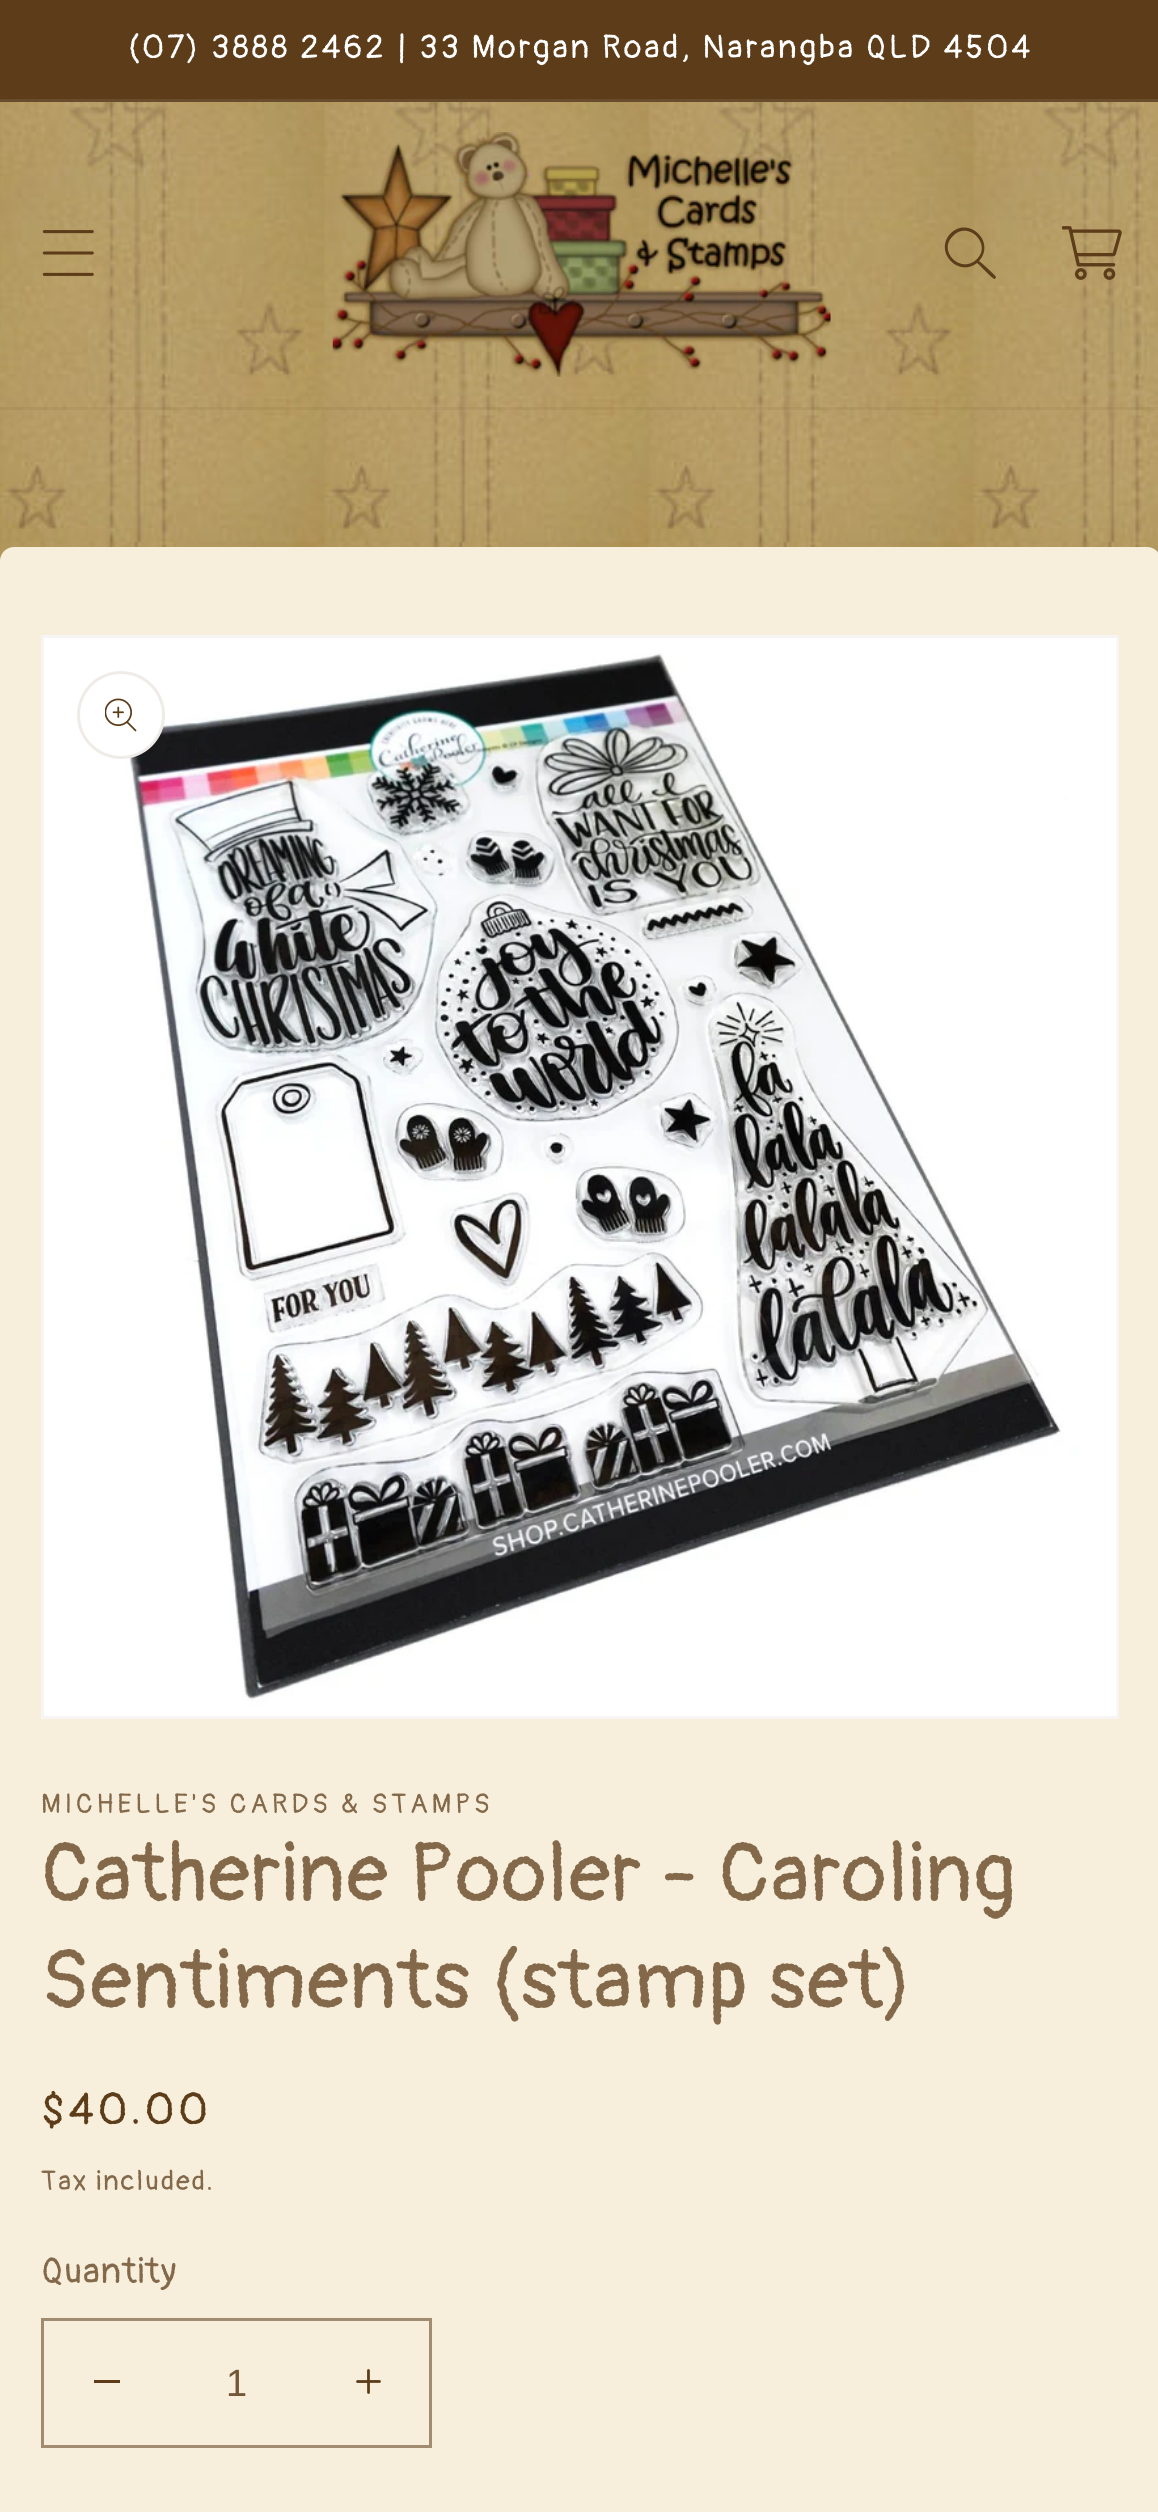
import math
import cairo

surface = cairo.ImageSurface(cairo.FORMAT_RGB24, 1158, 2512)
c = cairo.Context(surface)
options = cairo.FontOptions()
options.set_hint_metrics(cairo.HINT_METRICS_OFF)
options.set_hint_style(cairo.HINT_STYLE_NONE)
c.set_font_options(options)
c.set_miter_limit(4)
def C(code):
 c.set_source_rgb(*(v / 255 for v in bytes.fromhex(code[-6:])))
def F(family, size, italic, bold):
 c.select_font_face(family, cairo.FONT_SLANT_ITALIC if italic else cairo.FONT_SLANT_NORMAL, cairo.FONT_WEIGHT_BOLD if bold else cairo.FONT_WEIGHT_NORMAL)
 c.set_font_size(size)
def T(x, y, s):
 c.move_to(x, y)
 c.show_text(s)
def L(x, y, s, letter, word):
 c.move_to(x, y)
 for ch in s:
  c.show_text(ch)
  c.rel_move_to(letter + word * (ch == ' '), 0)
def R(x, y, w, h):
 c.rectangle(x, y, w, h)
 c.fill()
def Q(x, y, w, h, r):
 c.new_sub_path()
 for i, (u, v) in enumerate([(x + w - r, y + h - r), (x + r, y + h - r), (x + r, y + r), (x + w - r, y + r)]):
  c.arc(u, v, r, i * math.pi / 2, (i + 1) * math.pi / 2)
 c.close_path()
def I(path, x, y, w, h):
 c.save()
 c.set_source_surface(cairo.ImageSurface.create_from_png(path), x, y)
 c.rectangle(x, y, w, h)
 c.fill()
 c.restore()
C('ffffff')
c.paint()
I('1.png',0,102,1158,459)
C('5c3c19')
R(0,0,1158,99)
C('694c2b')
R(0,99,1158,3)
F('Pangolin',33,0,0)
C('ffffff')
L(128,58,'(07) 3888 2462 | 33 Morgan Road, Narangba QLD 4504',2.75,0)
c.set_source_rgba(0.361,0.235,0.098,0.08)
R(0,407,1158,3)
I('2.png',42,230,52,46)
I('3.png',332,132,499,245)
C('5c3c19')
c.set_fill_rule(cairo.FILL_RULE_EVEN_ODD)
c.new_path()
c.move_to(977,259)
c.curve_to(961,275,937,251,953,236)
c.curve_to(968,220,992,244,977,259)
c.close_path()
c.move_to(977,263)
c.curve_to(958,278,933,251,951,233)
c.curve_to(969,216,996,242,979,261)
c.curve_to(982,263,996,276,996,277)
c.line_to(995,279)
c.curve_to(993,280,980,265,977,263)
c.close_path()
c.fill()
I('4.png',1062,226,60,54)
C('f7eedc')
Q(0,547,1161,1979,14)
c.fill()
C('ffffff')
R(44,638,81,1078)
c.rectangle(42.5,636.5,1075,1081)
C('f7f5f4')
c.set_line_width(3)
c.stroke()
I('5.png',125,638,992,1078)
C('ffffff')
c.arc(121,715,44,0,2 * math.pi)
c.fill()
c.arc(121,715,42.5,0,2 * math.pi)
c.set_source_rgba(0.361,0.235,0.098,0.1)
c.stroke()
I('6.png',105,698,32,34)
F('Pangolin',27.5,0,0)
C('83694a')
L(41,1813,'MICHELLE\'S CARDS & STAMPS',3.6,0)
F('Pangolin',82.5,0,0)
L(41,1901,'Catherine Pooler - Caroling',1.65,0)
L(41,2008,'Sentiments (stamp set)',1.65,0)
F('Pangolin',44,0,0)
C('5c3c19')
L(41,2124,'$40.00',3.6,0)
F('Pangolin',27.5,0,0)
C('83694a')
L(41,2190,'Tax included.',1.9,0)
F('Pangolin',36,0,0)
L(41,2283,'Quantity',1,0)
C('5c3c19')
R(94,2380,26,3)
I('7.png',356,2369,25,25)
c.rectangle(42.5,2319.5,388,127)
C('a28c71')
c.stroke()
F('Liberation Sans',38,0,0)
C('735736')
T(226,2396,'1')
surface.write_to_png('o.png')
